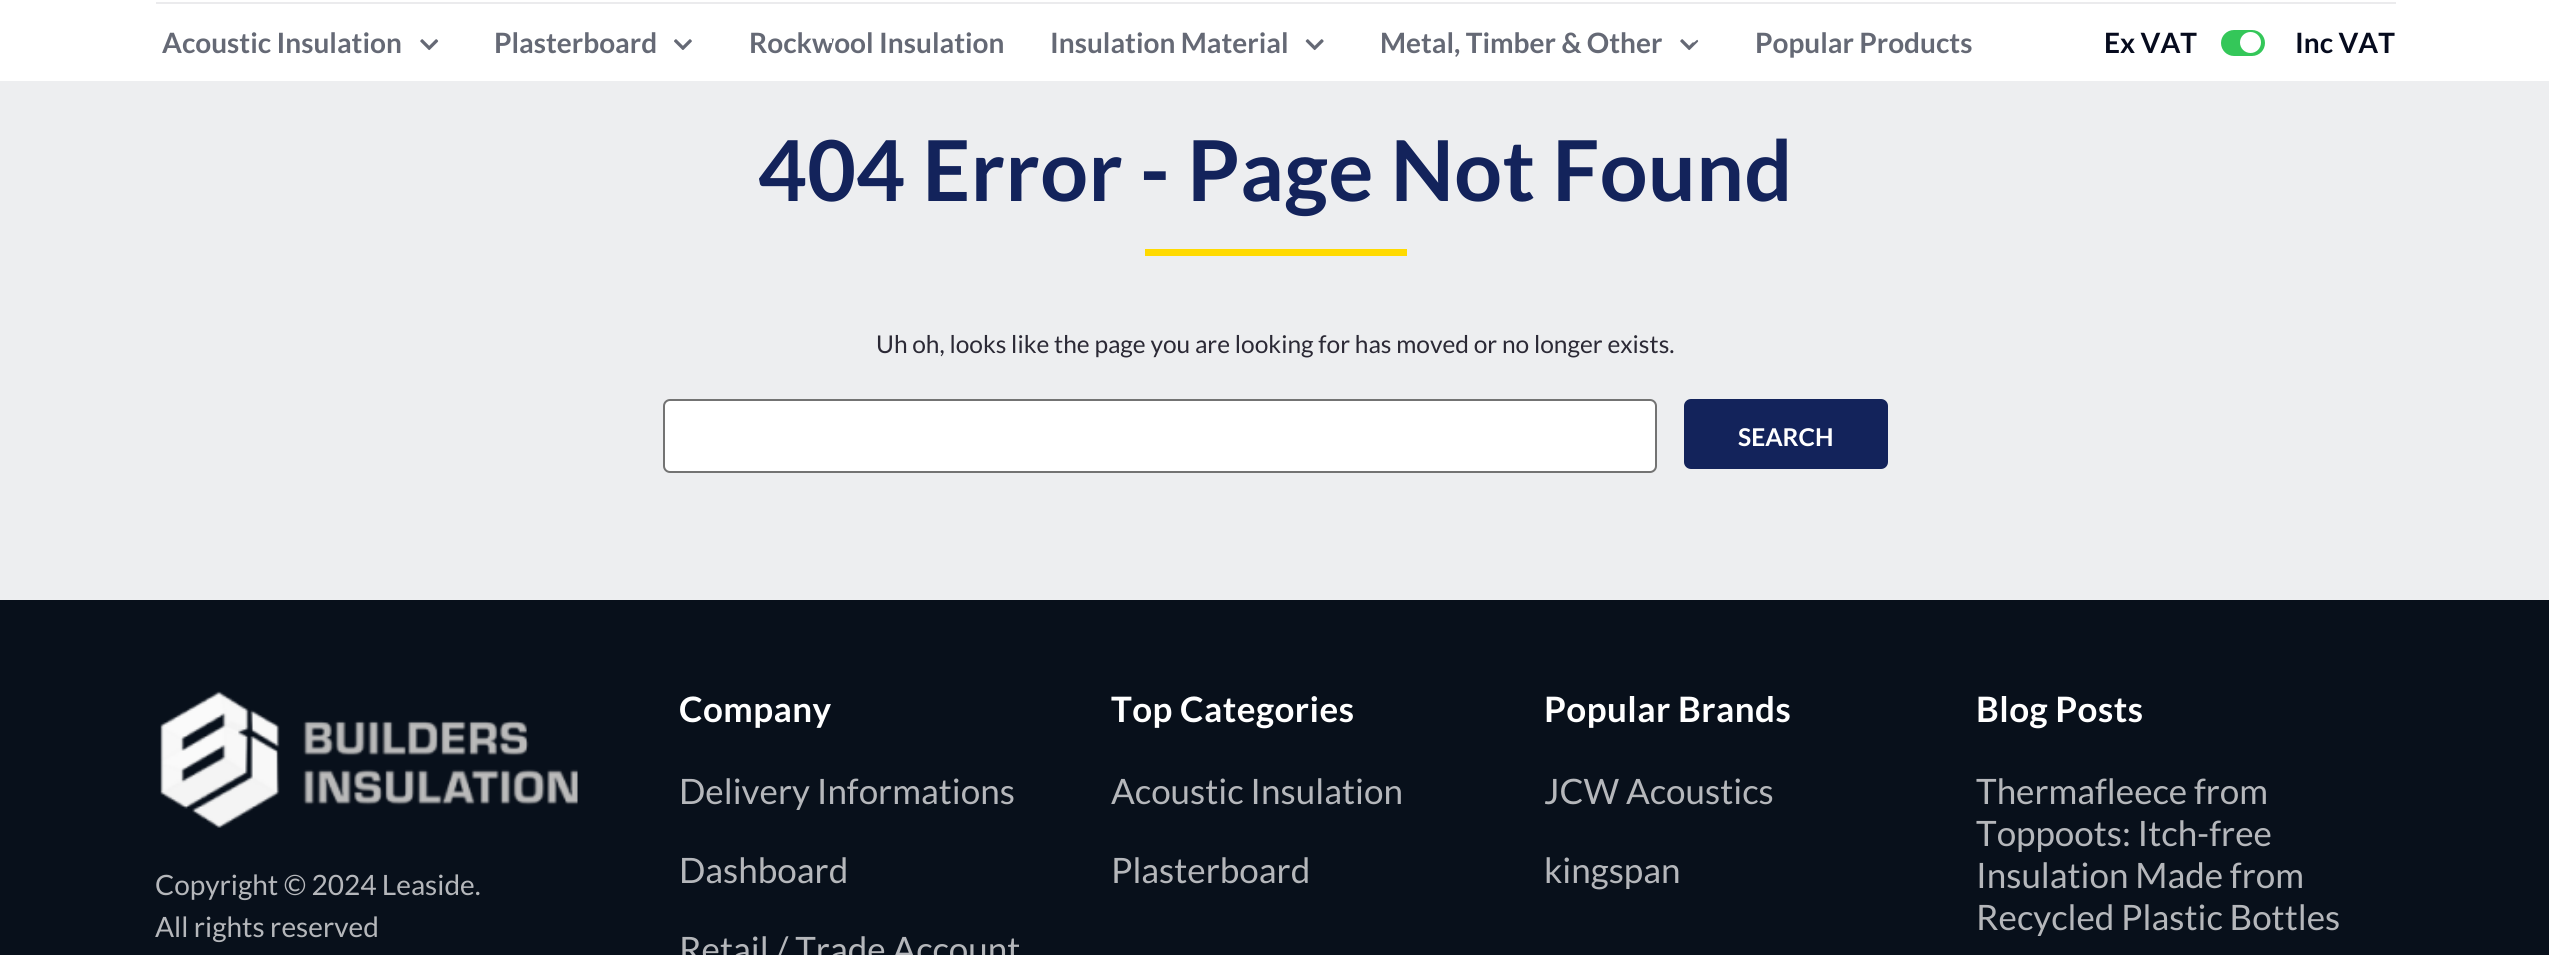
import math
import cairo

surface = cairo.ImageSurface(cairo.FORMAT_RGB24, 2549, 955)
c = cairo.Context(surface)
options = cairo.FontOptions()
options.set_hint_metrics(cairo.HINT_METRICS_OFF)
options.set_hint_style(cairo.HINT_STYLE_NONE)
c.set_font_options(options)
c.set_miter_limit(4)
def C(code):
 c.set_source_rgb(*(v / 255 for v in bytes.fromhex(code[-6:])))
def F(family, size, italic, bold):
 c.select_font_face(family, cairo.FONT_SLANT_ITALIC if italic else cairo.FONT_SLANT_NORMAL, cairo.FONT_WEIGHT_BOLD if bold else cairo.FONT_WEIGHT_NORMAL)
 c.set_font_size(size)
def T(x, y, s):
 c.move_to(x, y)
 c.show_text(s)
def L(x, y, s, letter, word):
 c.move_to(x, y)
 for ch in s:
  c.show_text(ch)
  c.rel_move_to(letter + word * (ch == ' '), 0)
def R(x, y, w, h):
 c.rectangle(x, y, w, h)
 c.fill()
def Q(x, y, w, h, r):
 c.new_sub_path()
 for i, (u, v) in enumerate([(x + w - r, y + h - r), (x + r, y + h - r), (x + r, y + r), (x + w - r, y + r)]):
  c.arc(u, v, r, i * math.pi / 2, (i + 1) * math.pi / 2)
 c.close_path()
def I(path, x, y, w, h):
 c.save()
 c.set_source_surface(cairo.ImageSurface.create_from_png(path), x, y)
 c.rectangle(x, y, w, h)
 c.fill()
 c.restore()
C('edeef0')
c.paint()
C('ffffff')
R(0,0,2549,81)
C('ebebed')
R(156,2,2240,2)
F('Lato',28,0,1)
C('656975')
T(162,53,'Acoustic Insulation')
I('1.png',420,39,19,12)
T(494,53,'Plasterboard')
I('2.png',674,39,18,11)
T(749,53,'Rockwool Insulation')
T(1050,53,'Insulation Material')
I('3.png',1305,39,19,12)
T(1380,53,'Metal, Timber & Other')
I('1.png',1680,39,19,12)
T(1755,53,'Popular Products')
C('060b1e')
T(2104,53,'Ex VAT')
C('34c759')
Q(2221,30,44,26,13)
c.fill()
C('ffffff')
c.arc(2250.5,42.5,10.5,0,2 * math.pi)
c.fill()
C('060b1e')
T(2295,53,'Inc VAT')
C('ffffff')
R(829,39,3,4)
I('4.png',1692,39,6,4)
F('Lato',84,0,1)
C('13235b')
L(758,201,'404 Error - Page Not Found',.45,0)
C('ffda00')
R(1145,249,262,7)
F('Lato',24.5,0,0)
C('2b2935')
T(876,353,'Uh oh, looks like the page you are looking for has moved or no longer exists.')
C('ffffff')
Q(664,400,992,72,6)
c.fill_preserve()
C('737373')
c.stroke()
C('13235b')
Q(1685,400,202,68,6)
c.fill_preserve()
c.stroke()
F('Lato',24.5,0,1)
C('ffffff')
T(1738,446,'SEARCH')
C('08101b')
R(0,600,2549,355)
I('5.png',160,691,418,137)
F('Lato',28,0,0)
C('b5b7bb')
T(155,895,'Copyright © 2024 Leaside.')
T(155,937,'All rights reserved')
F('Lato',35,0,1)
C('ffffff')
L(679,722,'Company',.45,0)
F('Lato',35,0,0)
C('b5b7bb')
T(679,804,'Delivery Informations')
T(679,883,'Dashboard')
T(679,962,'Retail / Trade Account')
F('Lato',35,0,1)
C('ffffff')
L(1111,722,'Top Categories',.45,0)
F('Lato',35,0,0)
C('b5b7bb')
T(1111,804,'Acoustic Insulation')
T(1111,883,'Plasterboard')
F('Lato',35,0,1)
C('ffffff')
L(1544,722,'Popular Brands',.45,0)
F('Lato',35,0,0)
C('b5b7bb')
T(1544,804,'JCW Acoustics')
T(1544,883,'kingspan')
F('Lato',35,0,1)
C('ffffff')
L(1976,722,'Blog Posts',.45,0)
F('Lato',35,0,0)
C('b5b7bb')
T(1976,804,'Thermafleece from')
T(1976,846,'Toppoots: Itch-free')
T(1976,888,'Insulation Made from')
T(1976,930,'Recycled Plastic Bottles')
surface.write_to_png('o.png')
